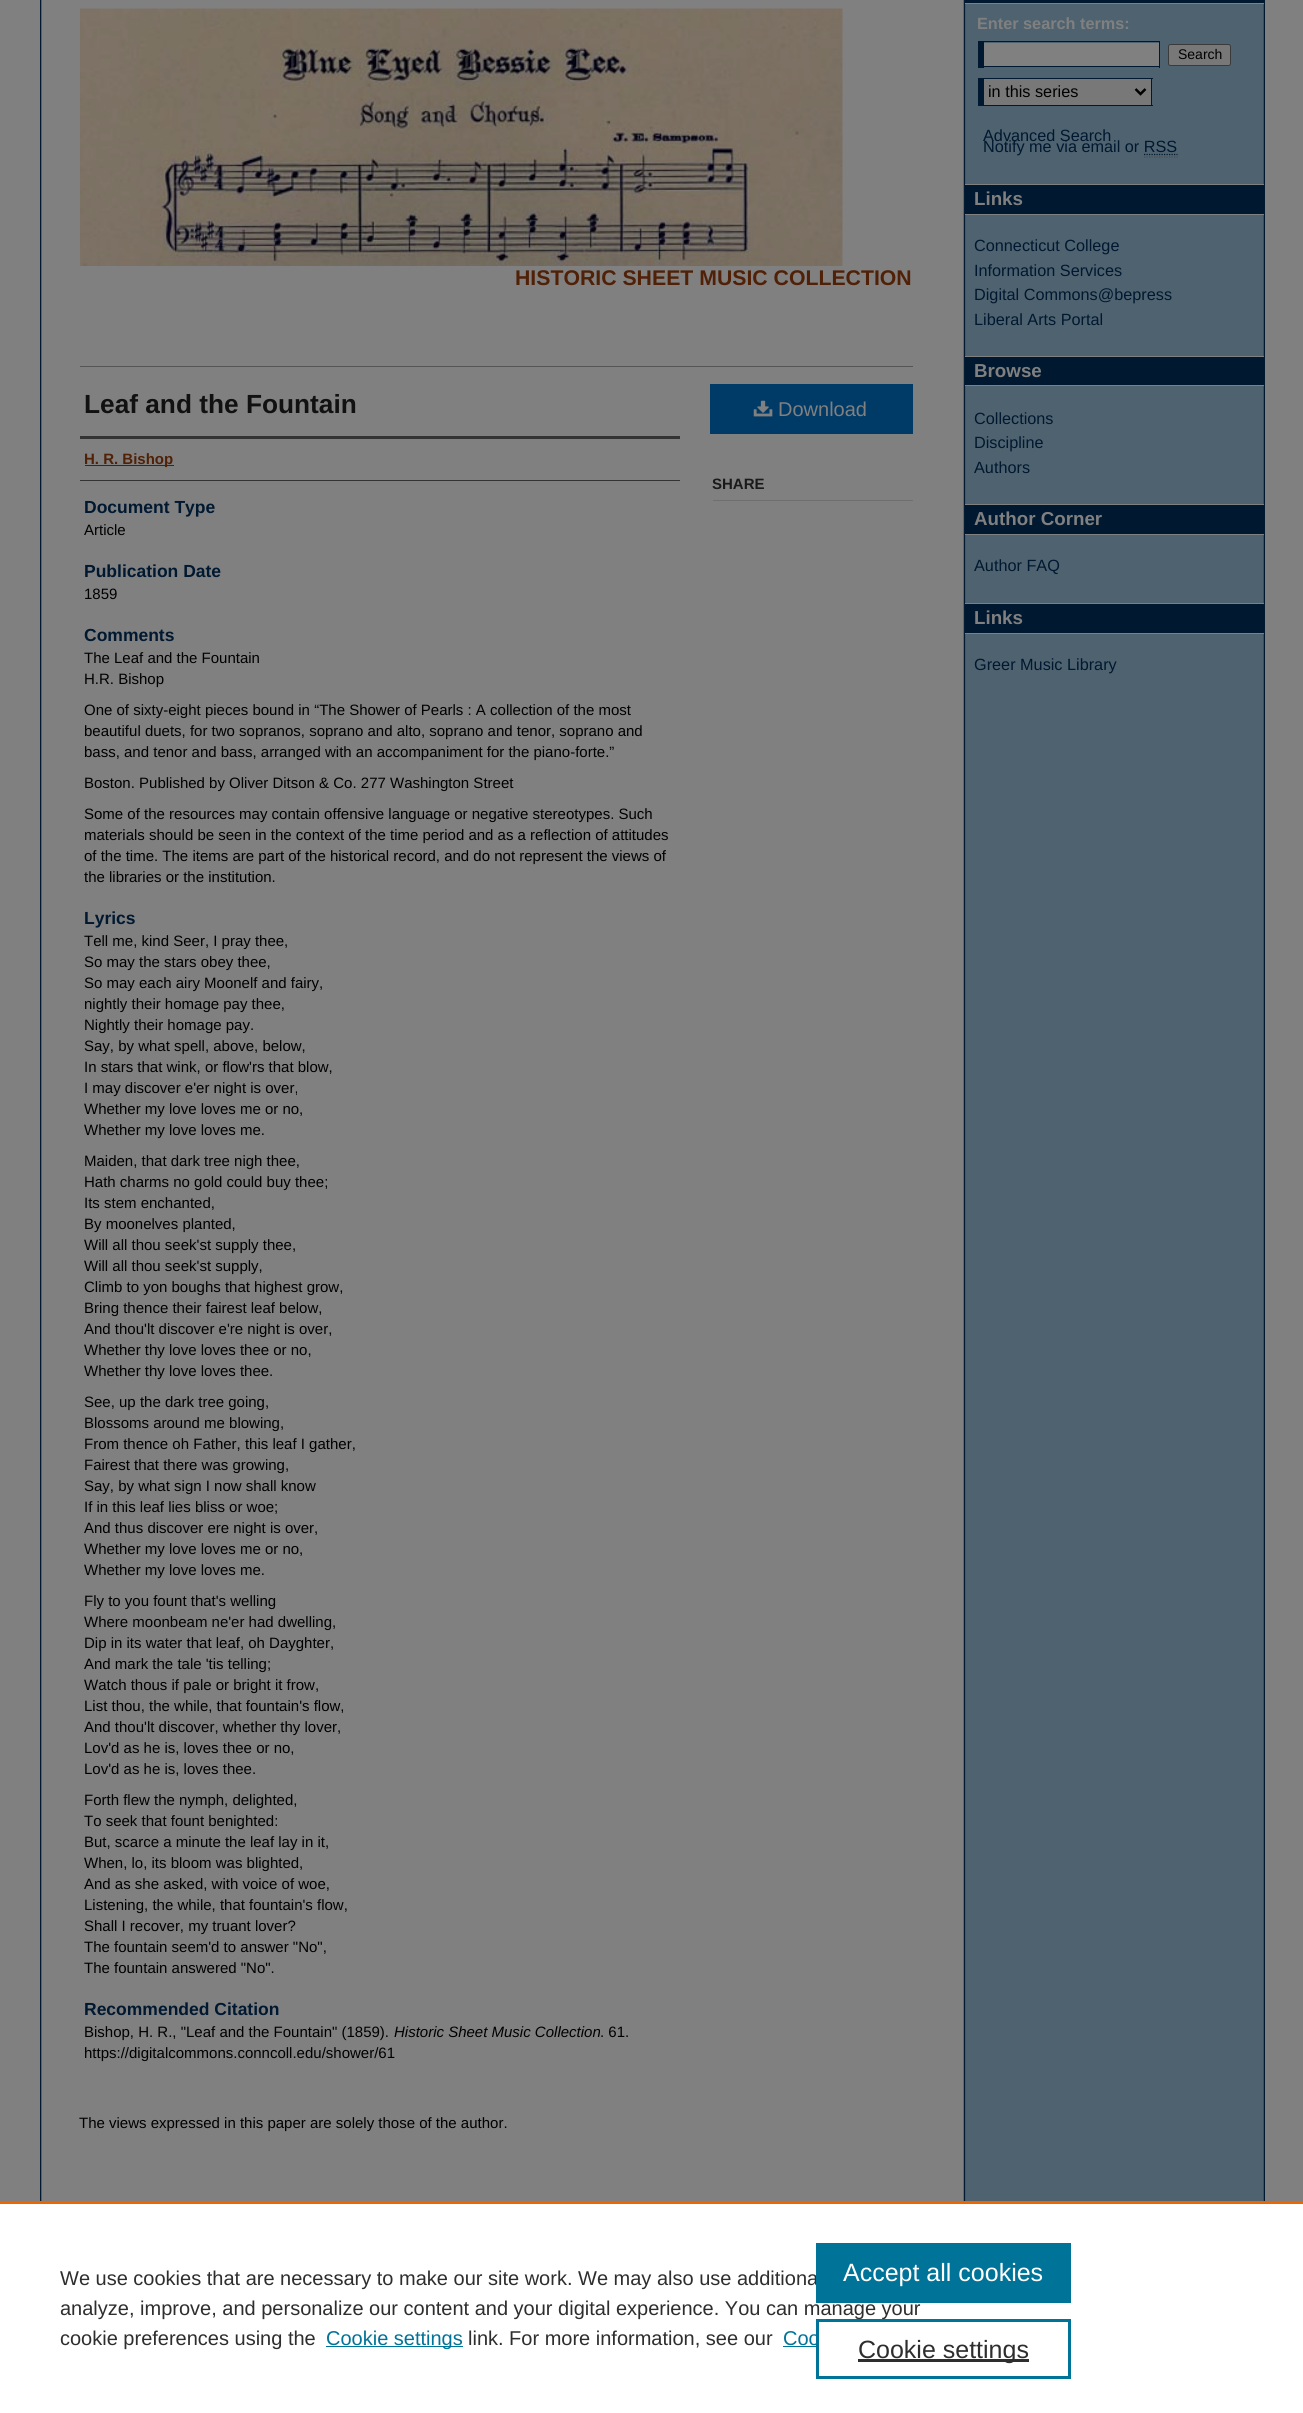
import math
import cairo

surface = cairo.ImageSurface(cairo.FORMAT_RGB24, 1303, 2413)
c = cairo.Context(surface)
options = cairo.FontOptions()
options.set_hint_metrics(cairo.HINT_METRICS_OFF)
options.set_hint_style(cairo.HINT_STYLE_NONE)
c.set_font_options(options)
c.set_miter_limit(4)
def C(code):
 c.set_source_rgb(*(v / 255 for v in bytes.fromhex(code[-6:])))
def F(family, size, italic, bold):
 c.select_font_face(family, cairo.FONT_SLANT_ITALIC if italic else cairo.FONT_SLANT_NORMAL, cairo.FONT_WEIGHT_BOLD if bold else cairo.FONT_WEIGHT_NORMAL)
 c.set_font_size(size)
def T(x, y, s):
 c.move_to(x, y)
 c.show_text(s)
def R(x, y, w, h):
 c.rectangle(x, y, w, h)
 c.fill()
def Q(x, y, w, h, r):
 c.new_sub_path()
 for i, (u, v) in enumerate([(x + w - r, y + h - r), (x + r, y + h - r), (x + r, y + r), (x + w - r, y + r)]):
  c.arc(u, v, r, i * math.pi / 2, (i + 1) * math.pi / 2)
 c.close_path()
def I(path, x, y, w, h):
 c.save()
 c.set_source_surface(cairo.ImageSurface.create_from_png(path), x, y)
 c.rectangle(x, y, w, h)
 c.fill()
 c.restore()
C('808080')
c.paint()
I('1.png',40,0,1225,2201)
I('2.png',80,8,763,258)
F('Liberation Sans',21.25,0,1)
C('502107')
T(515,285,'HISTORIC SHEET MUSIC COLLECTION')
C('555555')
R(80,366,833,1)
F('Liberation Sans',26.25,0,1)
C('111111')
T(84,413,'Leaf and the Fountain')
C('333333')
R(80,436,600,3)
R(80,480,600,1)
C('502107')
R(85,465,89,1)
F('Liberation Sans',15,0,1)
T(84,464,'H. R. Bishop')
F('Liberation Sans',17.5,0,1)
C('001830')
T(84,513,'Document Type')
F('Liberation Sans',15,0,0)
C('000000')
T(84,535,'Article')
F('Liberation Sans',17.5,0,1)
C('001830')
T(84,577,'Publication Date')
F('Liberation Sans',15,0,0)
C('000000')
T(84,599,'1859')
F('Liberation Sans',17.5,0,1)
C('001830')
T(84,641,'Comments')
F('Liberation Sans',15,0,0)
C('000000')
T(84,663,'The Leaf and the Fountain')
T(84,684,'H.R. Bishop')
T(84,715,'One of sixty-eight pieces bound in “The Shower of Pearls : A collection of the most')
T(84,736,'beautiful duets, for two sopranos, soprano and alto, soprano and tenor, soprano and')
T(84,757,'bass, and tenor and bass, arranged with an accompaniment for the piano-forte.”')
T(84,788,'Boston. Published by Oliver Ditson & Co. 277 Washington Street')
T(84,819,'Some of the resources may contain offensive language or negative stereotypes. Such')
T(84,840,'materials should be seen in the context of the time period and as a reflection of attitudes')
T(84,861,'of the time. The items are part of the historical record, and do not represent the views of')
T(84,882,'the libraries or the institution.')
F('Liberation Sans',17.5,0,1)
C('001830')
T(84,924,'Lyrics')
F('Liberation Sans',15,0,0)
C('000000')
T(84,946,'Tell me, kind Seer, I pray thee,')
T(84,967,'So may the stars obey thee,')
T(84,988,'So may each airy Moonelf and fairy,')
T(84,1009,'nightly their homage pay thee,')
T(84,1030,'Nightly their homage pay.')
T(84,1051,'Say, by what spell, above, below,')
T(84,1072,'In stars that wink, or flow\'rs that blow,')
T(84,1093,'I may discover e\'er night is over,')
T(84,1114,'Whether my love loves me or no,')
T(84,1135,'Whether my love loves me.')
T(84,1166,'Maiden, that dark tree nigh thee,')
T(84,1187,'Hath charms no gold could buy thee;')
T(84,1208,'Its stem enchanted,')
T(84,1229,'By moonelves planted,')
T(84,1250,'Will all thou seek\'st supply thee,')
T(84,1271,'Will all thou seek\'st supply,')
T(84,1292,'Climb to yon boughs that highest grow,')
T(84,1313,'Bring thence their fairest leaf below,')
T(84,1334,'And thou\'lt discover e\'re night is over,')
T(84,1355,'Whether thy love loves thee or no,')
T(84,1376,'Whether thy love loves thee.')
T(84,1407,'See, up the dark tree going,')
T(84,1428,'Blossoms around me blowing,')
T(84,1449,'From thence oh Father, this leaf I gather,')
T(84,1470,'Fairest that there was growing,')
T(84,1491,'Say, by what sign I now shall know')
T(84,1512,'If in this leaf lies bliss or woe;')
T(84,1533,'And thus discover ere night is over,')
T(84,1554,'Whether my love loves me or no,')
T(84,1575,'Whether my love loves me.')
T(84,1606,'Fly to you fount that\'s welling')
T(84,1627,'Where moonbeam ne\'er had dwelling,')
T(84,1648,'Dip in its water that leaf, oh Dayghter,')
T(84,1669,'And mark the tale \'tis telling;')
T(84,1690,'Watch thous if pale or bright it frow,')
T(84,1711,'List thou, the while, that fountain\'s flow,')
T(84,1732,'And thou\'lt discover, whether thy lover,')
T(84,1753,'Lov\'d as he is, loves thee or no,')
T(84,1774,'Lov\'d as he is, loves thee.')
T(84,1805,'Forth flew the nymph, delighted,')
T(84,1826,'To seek that fount benighted:')
T(84,1847,'But, scarce a minute the leaf lay in it,')
T(84,1868,'When, lo, its bloom was blighted,')
T(84,1889,'And as she asked, with voice of woe,')
T(84,1910,'Listening, the while, that fountain\'s flow,')
T(84,1931,'Shall I recover, my truant lover?')
T(84,1952,'The fountain seem\'d to answer "No",')
T(84,1973,'The fountain answered "No".')
F('Liberation Sans',17.5,0,1)
C('001830')
T(84,2015,'Recommended Citation')
F('Liberation Sans',15,0,0)
C('000000')
T(84,2037,'Bishop, H. R., "Leaf and the Fountain" (1859).')
F('Liberation Sans',15,1,0)
T(394,2037,'Historic Sheet Music Collection')
F('Liberation Sans',15,0,0)
T(600,2037,'. 61.')
T(84,2058,'https://digitalcommons.conncoll.edu/shower/61')
C('003a66')
R(710,384,203,50)
I('3.png',753,400,20,17)
F('Liberation Sans',20,0,0)
C('808080')
T(778,416,'Download')
C('6f6f6f')
R(713,500,200,1)
F('Liberation Sans',15,0,1)
C('1a1a1a')
T(712,489,'SHARE')
F('Liberation Sans',15,0,0)
C('000000')
T(79,2128,'The views expressed in this paper are solely those of the author.')
C('001830')
R(965,0,299,3)
C('808080')
R(965,3,299,1)
F('Liberation Sans',16.25,0,1)
T(977,29,'Enter search terms:')
R(984,43,175,23)
C('001830')
R(978,41,182,1)
R(1159,41,1,27)
R(978,66,182,1)
R(978,41,6,27)
C('787878')
Q(1168.5,44.5,62,21,2)
c.fill_preserve()
C('3b3b3b')
c.set_line_width(1)
c.stroke()
F('Liberation Sans',14,0,0)
C('000000')
T(1178,59,'Search')
C('787878')
R(984,79,167,26)
C('001830')
R(978,78,175,1)
R(1151,78,1,28)
R(978,105,175,1)
R(978,78,6,28)
c.new_path()
c.move_to(1135.5,89)
c.line_to(1140.5,94)
c.line_to(1145.5,89)
C('000000')
c.set_line_width(2.5)
c.stroke()
F('Liberation Sans',16.25,0,0)
T(988,97,'in this series')
C('001830')
T(983,141,'Advanced Search')
T(983,152,'Notify me via email or RSS')
c.new_path()
c.move_to(1144,154.5)
c.line_to(1177.5,154.5)
c.set_line_width(1.2)
c.set_dash([1.25,1.25])
c.stroke()
c.new_path()
c.move_to(1144,157)
c.line_to(1177.5,157)
C('4d4d4d')
c.stroke()
C('001830')
R(965,185,299,29)
C('808080')
R(965,184,299,1)
R(965,214,299,1)
F('Liberation Sans',18.75,0,1)
T(974,205,'Links')
F('Liberation Sans',16.25,0,0)
C('001830')
T(974,251,'Connecticut College')
T(974,276,'Information Services')
T(974,300,'Digital Commons@bepress')
T(974,325,'Liberal Arts Portal')
R(965,357,299,28)
C('808080')
R(965,356,299,1)
R(965,385,299,1)
F('Liberation Sans',18.75,0,1)
T(974,377,'Browse')
F('Liberation Sans',16.25,0,0)
C('001830')
T(974,424,'Collections')
T(974,448,'Discipline')
T(974,473,'Authors')
R(965,505,299,29)
C('808080')
R(965,504,299,1)
R(965,534,299,1)
F('Liberation Sans',18.75,0,1)
T(974,525,'Author Corner')
F('Liberation Sans',16.25,0,0)
C('001830')
T(974,571,'Author FAQ')
R(965,604,299,29)
C('808080')
R(965,603,299,1)
R(965,633,299,1)
F('Liberation Sans',18.75,0,1)
T(974,624,'Links')
F('Liberation Sans',16.25,0,0)
C('001830')
T(974,670,'Greer Music Library')
C('ffffff')
R(0,2204,1303,209)
C('eb6500')
R(0,2201,1303,3)
F('Liberation Sans',20,0,0)
C('2e2e2e')
T(60,2285,'We use cookies that are necessary to make our site work. We may also use additiona')
T(60,2315,'analyze, improve, and personalize our content and your digital experience. You can manage your')
T(60,2345,'cookie preferences using the')
C('007398')
R(326,2346,137,1)
T(326,2345,'Cookie settings')
C('2e2e2e')
T(468,2345,'link. For more information, see our')
C('007398')
T(783,2345,'Coo')
R(783,2346,33,1)
R(816,2243,255,60)
F('Liberation Sans',25,0,0)
C('ffffff')
T(843,2281,'Accept all cookies')
c.rectangle(817.5,2320.5,252,57)
C('007398')
c.set_line_width(3)
c.set_dash([])
c.stroke()
C('2e2e2e')
R(858,2359,171,3)
T(858,2358,'Cookie settings')
surface.write_to_png('o.png')
